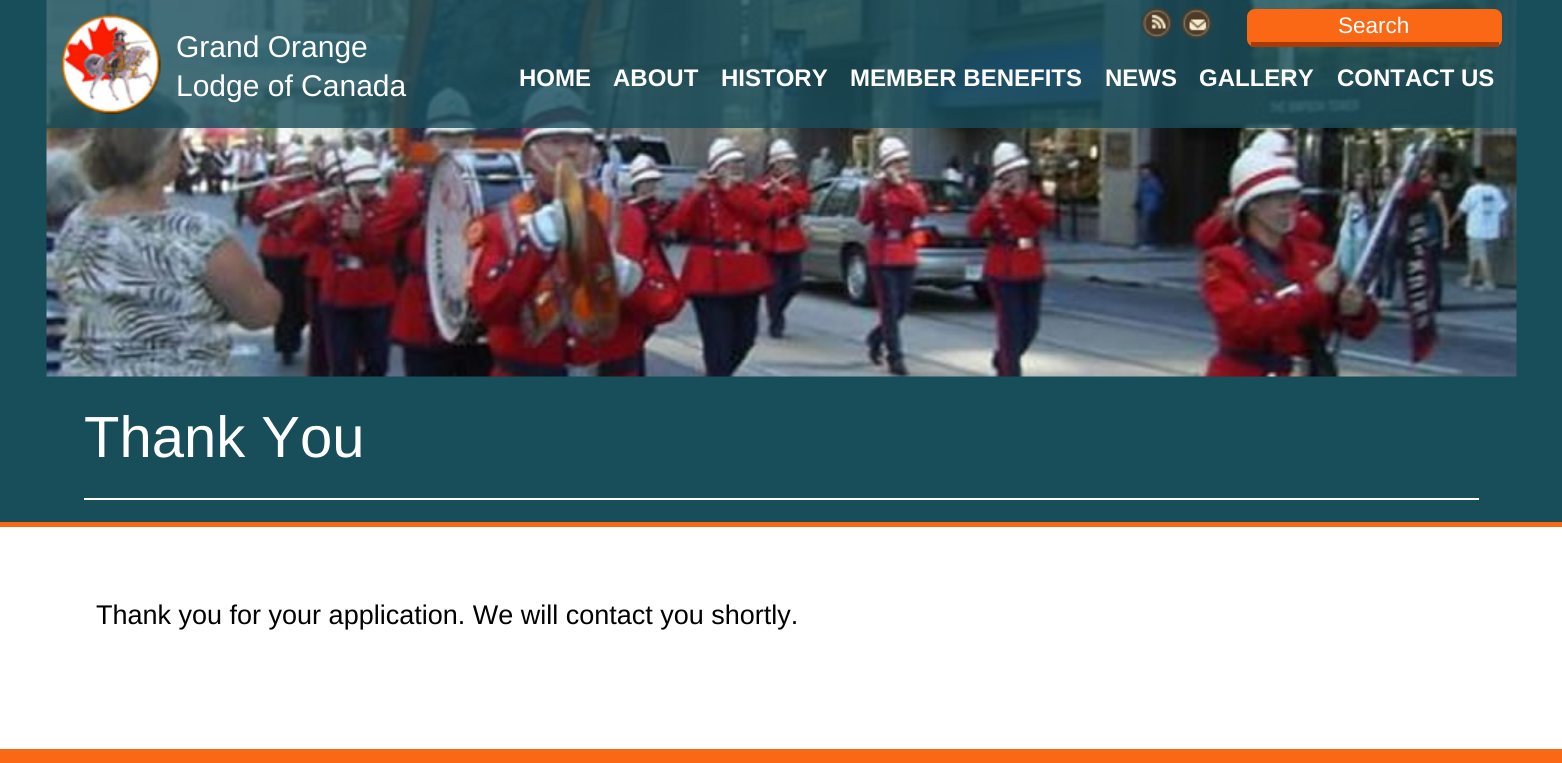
import math
import cairo

surface = cairo.ImageSurface(cairo.FORMAT_RGB24, 1562, 763)
c = cairo.Context(surface)
options = cairo.FontOptions()
options.set_hint_metrics(cairo.HINT_METRICS_OFF)
options.set_hint_style(cairo.HINT_STYLE_NONE)
c.set_font_options(options)
c.set_miter_limit(4)
def C(code):
 c.set_source_rgb(*(v / 255 for v in bytes.fromhex(code[-6:])))
def F(family, size, italic, bold):
 c.select_font_face(family, cairo.FONT_SLANT_ITALIC if italic else cairo.FONT_SLANT_NORMAL, cairo.FONT_WEIGHT_BOLD if bold else cairo.FONT_WEIGHT_NORMAL)
 c.set_font_size(size)
def T(x, y, s):
 c.move_to(x, y)
 c.show_text(s)
def R(x, y, w, h):
 c.rectangle(x, y, w, h)
 c.fill()
def Q(x, y, w, h, r):
 c.new_sub_path()
 for i, (u, v) in enumerate([(x + w - r, y + h - r), (x + r, y + h - r), (x + r, y + r), (x + w - r, y + r)]):
  c.arc(u, v, r, i * math.pi / 2, (i + 1) * math.pi / 2)
 c.close_path()
def I(path, x, y, w, h):
 c.save()
 c.set_source_surface(cairo.ImageSurface.create_from_png(path), x, y)
 c.rectangle(x, y, w, h)
 c.fill()
 c.restore()
C('ffffff')
c.paint()
C('184d5a')
R(0,0,1562,522)
I('4.png',46,0,1471,377)
c.set_source_rgba(0.094,0.302,0.353,0.81)
R(46,0,1471,128)
I('1.png',61,15,100,99)
F('Liberation Sans',30,0,0)
C('ffffff')
T(176,57,'Grand Orange')
T(176,96,'Lodge of Canada')
I('2.png',1141,7,32,32)
I('3.png',1180,7,32,32)
C('fa6715')
Q(1247,9,255,38,8)
c.fill()
C('aa3b04')
R(1251,42,248,5)
F('Liberation Sans',22.5,0,0)
C('ffffff')
T(1338,33,'Search')
F('Liberation Sans',24,0,1)
T(519,86,'HOME')
T(613,86,'ABOUT')
T(721,86,'HISTORY')
T(850,86,'MEMBER BENEFITS')
T(1105,86,'NEWS')
T(1199,86,'GALLERY')
T(1337,86,'CONTACT US')
C('fa6715')
R(0,522,1562,5)
C('ffffff')
R(84,498,1395,2)
F('Liberation Sans',58,0,0)
T(84,457,'Thank You')
F('Liberation Sans',27,0,0)
C('000000')
T(96,624,'Thank you for your application. We will contact you shortly.')
C('fa6715')
R(0,749,1562,14)
surface.write_to_png('o.png')
